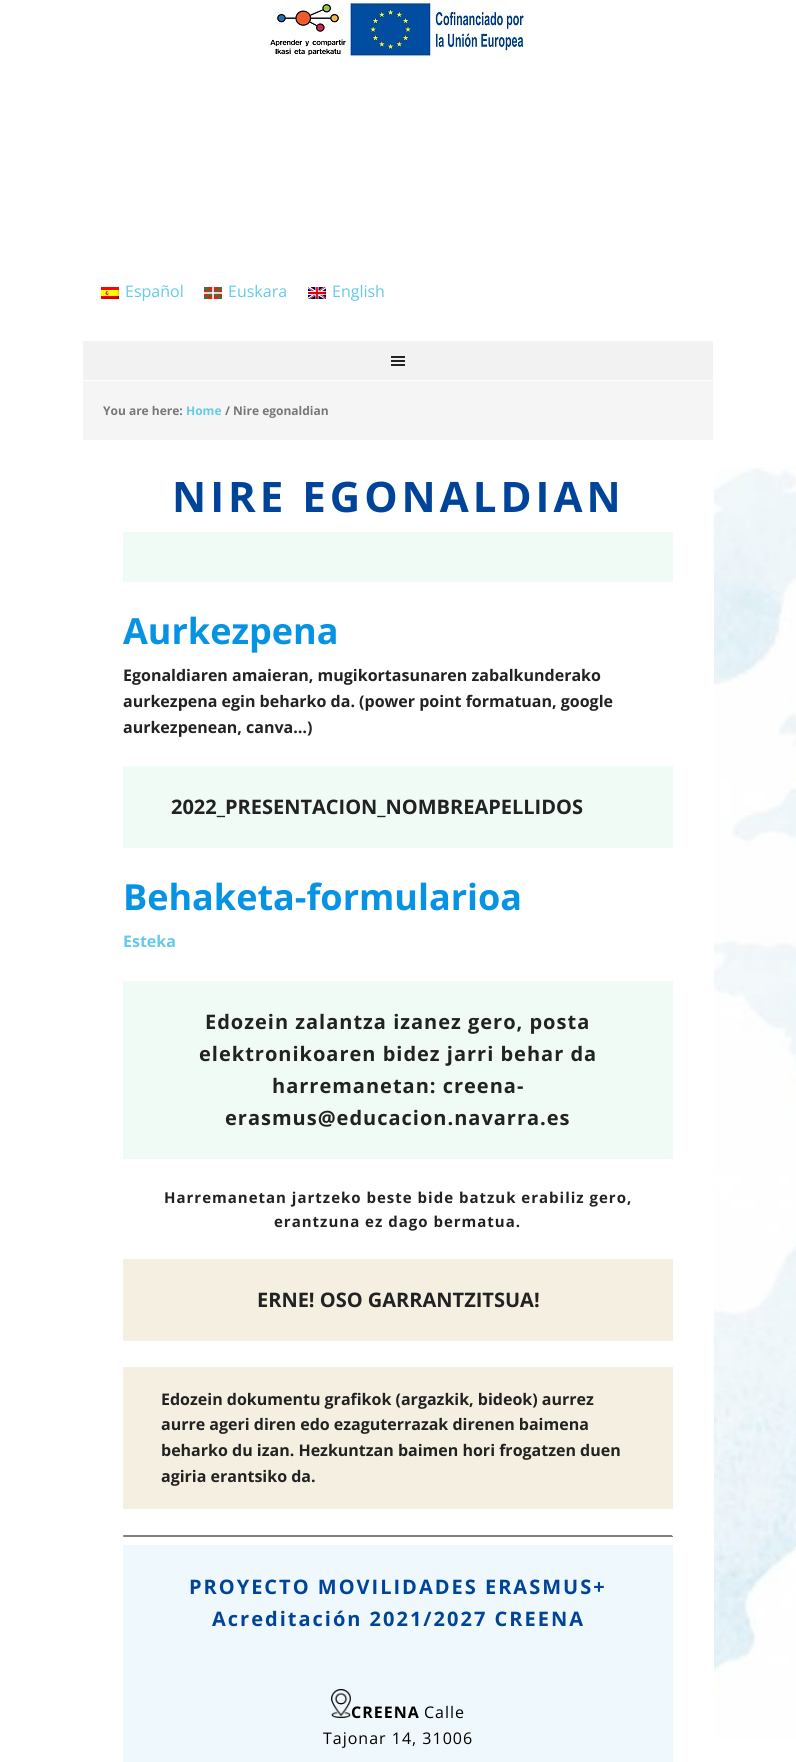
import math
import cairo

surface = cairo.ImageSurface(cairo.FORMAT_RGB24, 796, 1762)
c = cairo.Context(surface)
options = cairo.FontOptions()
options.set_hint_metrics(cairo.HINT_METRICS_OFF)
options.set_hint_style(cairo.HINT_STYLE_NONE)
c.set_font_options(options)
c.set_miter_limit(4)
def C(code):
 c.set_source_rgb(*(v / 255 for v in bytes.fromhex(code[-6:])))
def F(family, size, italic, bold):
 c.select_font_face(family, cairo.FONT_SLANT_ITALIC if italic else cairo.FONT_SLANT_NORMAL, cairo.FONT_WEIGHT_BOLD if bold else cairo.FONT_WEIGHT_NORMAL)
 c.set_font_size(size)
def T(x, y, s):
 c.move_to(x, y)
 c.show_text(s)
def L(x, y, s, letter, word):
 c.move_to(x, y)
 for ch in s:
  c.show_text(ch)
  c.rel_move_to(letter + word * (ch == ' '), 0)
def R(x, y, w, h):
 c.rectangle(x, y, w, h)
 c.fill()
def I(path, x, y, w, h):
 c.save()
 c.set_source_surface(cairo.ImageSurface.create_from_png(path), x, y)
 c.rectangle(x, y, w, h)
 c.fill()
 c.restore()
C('ffffff')
c.paint()
I('1.png',714,467,82,1272)
I('2.png',270,0,255,57)
I('3.png',101,287,18,12)
F('Open Sans',16,0,0)
C('64c9ea')
T(125,297,'Español')
I('4.png',204,287,18,12)
T(228,297,'Euskara')
I('5.png',308,287,18,12)
T(332,297,'English')
C('f2f2f2')
R(83,341,630,39)
I('6.png',391,356,14,10)
C('f5f5f5')
R(83,381,630,59)
F('Open Sans',12,0,1)
C('777777')
T(103,415,'You are here:')
C('64c9ea')
T(186,415,'Home')
C('777777')
T(225,415,'/ Nire egonaldian')
F('Open Sans',42,0,1)
C('004499')
L(172,512,'NIRE EGONALDIAN',4,0)
C('f0fbf6')
R(123,532,550,50)
F('Open Sans',36,0,1)
C('0693e3')
T(123,644,'Aurkezpena')
F('Open Sans',16,0,1)
C('222222')
T(123,681,'Egonaldiaren amaieran, mugikortasunaren zabalkunderako')
T(123,707,'aurkezpena egin beharko da. (power point formatuan, google')
T(123,733,'aurkezpenean, canva…)')
C('f0fbf6')
R(123,766,550,82)
F('Open Sans',20,0,1)
C('222222')
T(171,814,'2022_PRESENTACION_NOMBREAPELLIDOS')
F('Open Sans',36,0,1)
C('0693e3')
T(123,910,'Behaketa-formularioa')
F('Open Sans',16,0,1)
C('64c9ea')
T(123,947,'Esteka')
C('f0fbf6')
R(123,981,550,178)
F('Open Sans',20,0,1)
C('222222')
L(205,1029,'Edozein zalantza izanez gero, posta',1,0)
L(199,1061,'elektronikoaren bidez jarri behar da',1,0)
L(272,1093,'harremanetan: creena-',1,0)
L(225,1125,'erasmus@educacion.navarra.es',1,0)
F('Open Sans',15,0,1)
L(164,1203,'Harremanetan jartzeko beste bide batzuk erabiliz gero,',1,0)
L(274,1227,'erantzuna ez dago bermatua.',1,0)
C('f4efe0')
R(123,1259,550,82)
F('Open Sans',20,0,1)
C('222222')
T(257,1307,'ERNE! OSO GARRANTZITSUA!')
C('f4efe0')
R(123,1367,550,142)
F('Open Sans',16,0,1)
C('222222')
T(161,1405,'Edozein dokumentu grafikok (argazkik, bideok) aurrez')
T(161,1430,'aurre ageri diren edo ezaguterrazak direnen baimena')
T(161,1456,'beharko du izan. Hezkuntzan baimen hori frogatzen duen')
T(161,1482,'agiria erantsiko da.')
C('808080')
R(123,1535,550,1)
C('eeeeee')
R(672,1535,1,2)
C('808080')
R(123,1536,550,1)
C('9f9f9f')
R(123,1535,1,2)
C('eff8fd')
R(123,1545,550,217)
F('Open Sans',20,0,1)
C('004499')
L(189,1594,'PROYECTO MOVILIDADES ERASMUS+',2,0)
L(212,1626,'Acreditación 2021/2027 CREENA',2,0)
I('7.png',331,1689,20,29)
F('Open Sans',16,0,1)
C('000000')
L(351,1718,'CREENA',1,0)
F('Open Sans',16,0,0)
L(424,1718,'Calle',1,0)
L(323,1744,'Tajonar 14, 31006',1,0)
surface.write_to_png('o.png')
